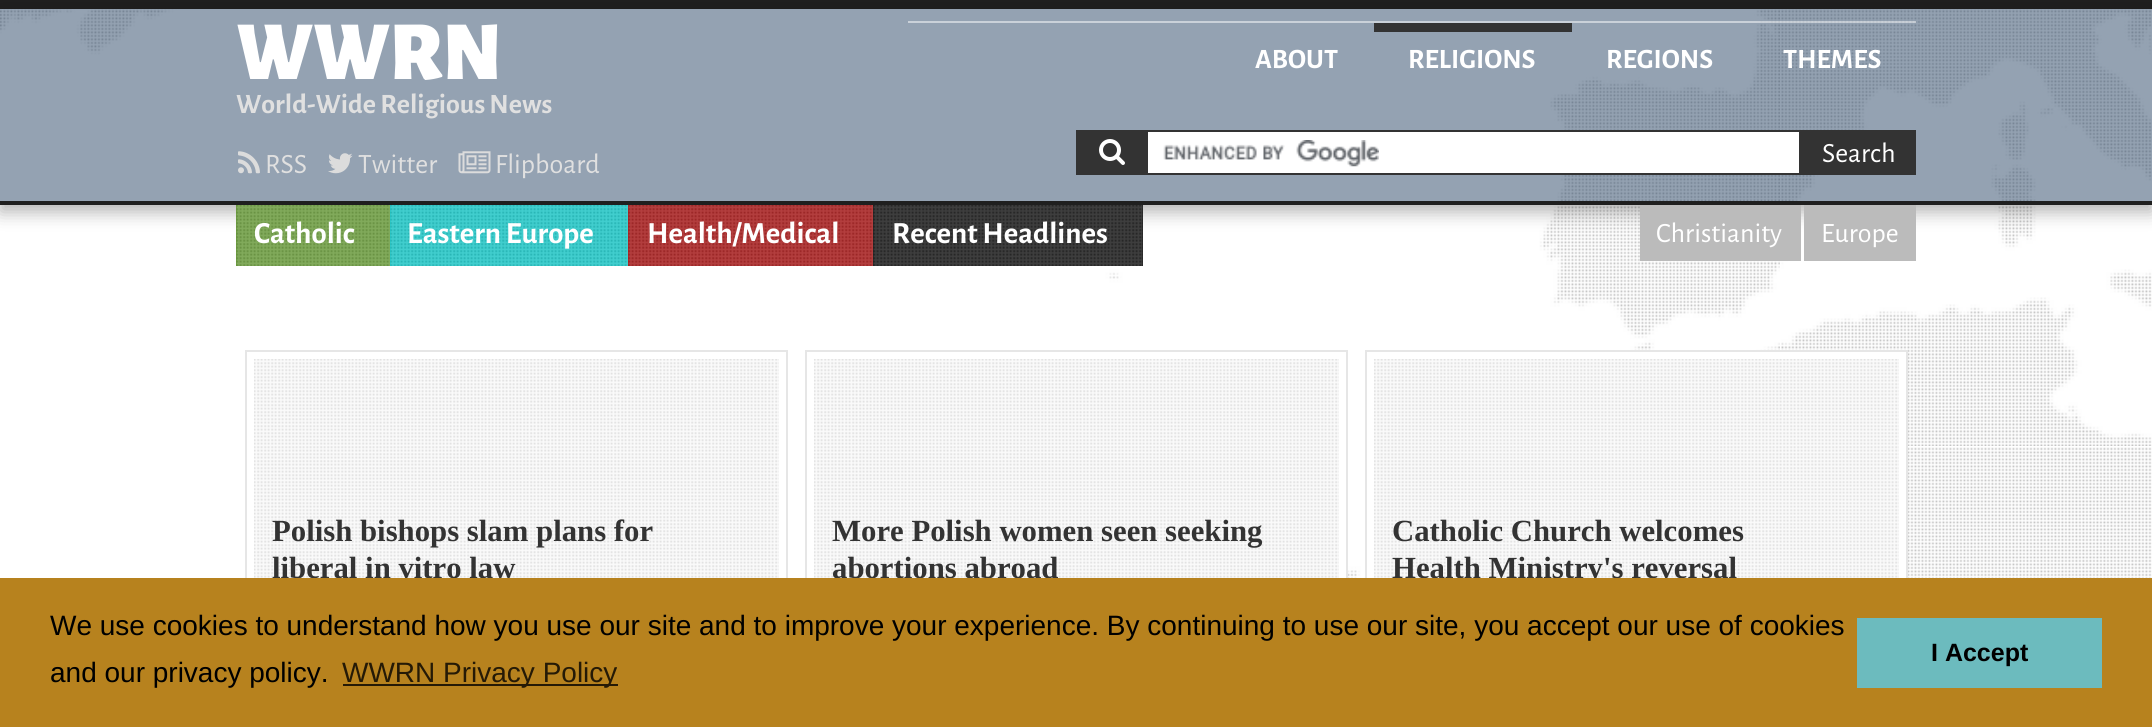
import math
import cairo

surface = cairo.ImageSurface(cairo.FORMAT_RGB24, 2152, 727)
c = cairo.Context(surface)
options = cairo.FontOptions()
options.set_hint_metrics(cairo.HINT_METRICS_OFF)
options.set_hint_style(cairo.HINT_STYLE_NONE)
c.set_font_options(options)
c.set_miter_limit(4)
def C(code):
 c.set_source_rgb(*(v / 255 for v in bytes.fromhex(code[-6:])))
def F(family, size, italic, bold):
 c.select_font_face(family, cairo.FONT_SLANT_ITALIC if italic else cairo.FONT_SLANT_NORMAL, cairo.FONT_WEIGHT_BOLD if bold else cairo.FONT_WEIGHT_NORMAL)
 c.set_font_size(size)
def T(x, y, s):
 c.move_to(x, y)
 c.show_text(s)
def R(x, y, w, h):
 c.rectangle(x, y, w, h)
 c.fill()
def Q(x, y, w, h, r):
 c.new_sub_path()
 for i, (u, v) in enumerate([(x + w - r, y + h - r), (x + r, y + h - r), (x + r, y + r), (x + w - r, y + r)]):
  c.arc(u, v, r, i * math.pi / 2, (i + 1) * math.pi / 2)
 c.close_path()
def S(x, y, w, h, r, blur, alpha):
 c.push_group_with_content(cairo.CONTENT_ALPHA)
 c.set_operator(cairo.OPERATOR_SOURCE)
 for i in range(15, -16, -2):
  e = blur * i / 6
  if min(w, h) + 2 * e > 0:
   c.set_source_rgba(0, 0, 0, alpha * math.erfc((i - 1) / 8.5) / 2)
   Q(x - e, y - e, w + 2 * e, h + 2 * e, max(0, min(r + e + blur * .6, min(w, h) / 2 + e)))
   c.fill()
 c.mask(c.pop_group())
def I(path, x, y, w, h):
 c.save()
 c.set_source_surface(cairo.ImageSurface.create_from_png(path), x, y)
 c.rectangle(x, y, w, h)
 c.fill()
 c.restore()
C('ffffff')
c.paint()
I('1.png',0,9,2152,569)
C('1f1f1f')
R(0,0,2152,9)
c.save()
c.set_fill_rule(cairo.FILL_RULE_EVEN_ODD)
c.new_path()
c.move_to(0,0)
c.line_to(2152,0)
c.line_to(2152,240)
c.line_to(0,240)
c.close_path()
c.move_to(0,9)
c.line_to(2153,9)
c.line_to(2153,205)
c.line_to(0,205)
c.close_path()
c.clip()
C('000000')
S(0,16,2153,196,0,9,.3)
c.restore()
c.set_source_rgba(0.165,0.278,0.404,0.5)
R(0,9,2152,192)
C('1f1f1f')
R(0,201,2152,4)
F('Alegreya Sans Black',84,0,0)
C('ffffff')
T(236,79,'WWRN')
F('Alegreya Sans',28,0,1)
C('e0e0e0')
T(236,113,'World-Wide Religious News')
c.set_source_rgba(1,1,1,0.5)
R(908,21,1008,2)
C('ffffff')
T(1255,68,'ABOUT')
C('333333')
R(1374,23,198,9)
C('ffffff')
T(1408,68,'RELIGIONS')
T(1606,68,'REGIONS')
T(1783,68,'THEMES')
I('2.png',238,151,22,23)
F('Alegreya Sans',28,0,0)
C('e0e0e0')
T(265,173,'RSS')
I('3.png',328,153,25,21)
T(358,173,'Twitter')
I('4.png',458,151,33,23)
T(495,173,'Flipboard')
C('333333')
R(1076,130,70,45)
I('5.png',1099,139,26,26)
C('ffffff')
R(1148,132,651,41)
I('6.png',1163,140,216,27)
c.rectangle(1147,131,653,43)
C('333333')
c.stroke()
R(1801,130,115,45)
C('ffffff')
T(1822,162,'Search')
C('598f27')
R(236,205,154,61)
I('7.png',236,205,154,61)
F('Alegreya Sans',30.75,0,1)
C('ffffff')
T(254,243,'Catholic')
C('04bfbf')
R(390,205,238,61)
I('8.png',390,205,238,61)
C('ffffff')
T(407,243,'Eastern Europe')
C('9c0000')
R(628,205,245,61)
I('9.png',628,205,245,61)
C('ffffff')
T(647,243,'Health/Medical')
C('000000')
R(873,205,270,61)
I('10.png',873,205,270,61)
C('ffffff')
T(892,243,'Recent Headlines')
C('bbbbbb')
R(1640,205,161,56)
F('Alegreya Sans',28,0,0)
C('ffffff')
T(1656,242,'Christianity')
C('bbbbbb')
R(1804,205,112,56)
C('ffffff')
T(1821,242,'Europe')
C('fafafa')
R(254,359,525,219)
I('11.png',254,359,525,219)
c.rectangle(246,351,541,299)
C('e6e6e6')
c.stroke()
F('Liberation Serif',30.75,0,1)
C('333333')
T(272,541,'Polish bishops slam plans for')
T(272,578,'liberal in vitro law')
C('fafafa')
R(814,359,525,219)
I('11.png',814,359,525,219)
c.rectangle(810.5,355.5,532,290)
C('ffffff')
c.set_line_width(7)
c.stroke()
c.rectangle(806,351,541,299)
C('e6e6e6')
c.set_line_width(2)
c.stroke()
C('333333')
T(832,541,'More Polish women seen seeking')
T(832,578,'abortions abroad')
C('fafafa')
R(1374,359,525,219)
I('12.png',1374,359,525,219)
c.rectangle(1370.5,355.5,532,290)
C('ffffff')
c.set_line_width(7)
c.stroke()
c.rectangle(1366,351,541,299)
C('e6e6e6')
c.set_line_width(2)
c.stroke()
C('333333')
T(1392,541,'Catholic Church welcomes')
T(1392,578,'Health Ministry\'s reversal')
C('b7821e')
R(0,578,2152,149)
F('Liberation Sans',28,0,0)
C('000000')
T(50,635,'We use cookies to understand how you use our site and to improve your experience. By continuing to use our site, you accept our use of cookies')
T(50,682,'and our privacy policy.')
C('251a06')
R(343,684,275,2)
T(342,682,'WWRN Privacy Policy')
C('6cbbbe')
R(1857,618,245,70)
F('Liberation Sans',25,0,1)
C('000000')
T(1931,661,'I Accept')
surface.write_to_png('o.png')
